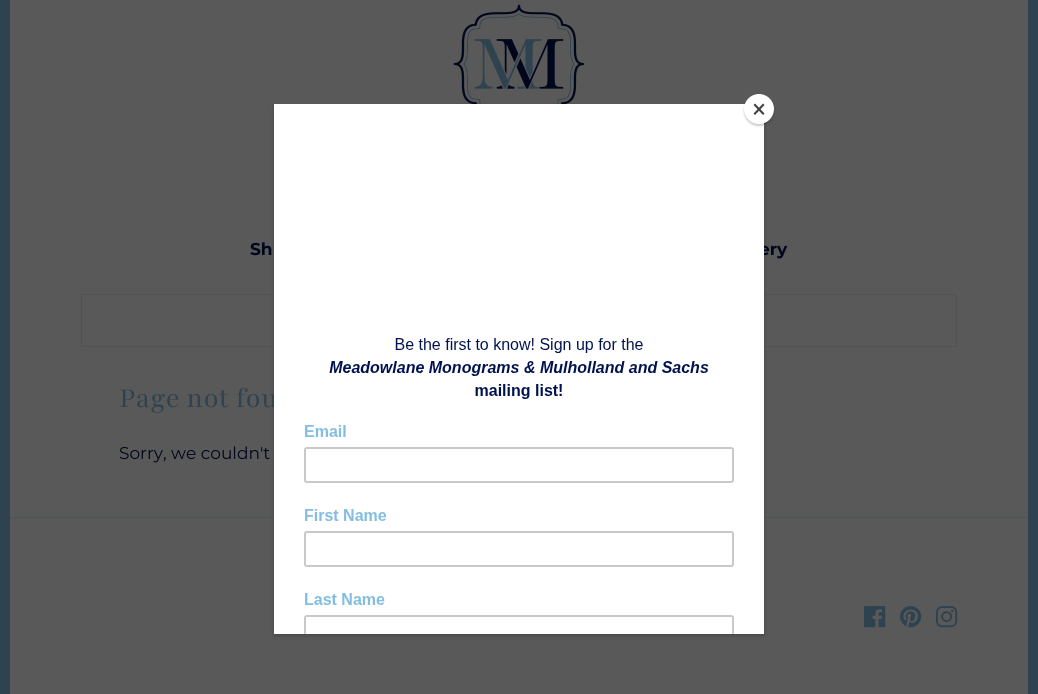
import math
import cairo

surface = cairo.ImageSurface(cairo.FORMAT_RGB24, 1038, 694)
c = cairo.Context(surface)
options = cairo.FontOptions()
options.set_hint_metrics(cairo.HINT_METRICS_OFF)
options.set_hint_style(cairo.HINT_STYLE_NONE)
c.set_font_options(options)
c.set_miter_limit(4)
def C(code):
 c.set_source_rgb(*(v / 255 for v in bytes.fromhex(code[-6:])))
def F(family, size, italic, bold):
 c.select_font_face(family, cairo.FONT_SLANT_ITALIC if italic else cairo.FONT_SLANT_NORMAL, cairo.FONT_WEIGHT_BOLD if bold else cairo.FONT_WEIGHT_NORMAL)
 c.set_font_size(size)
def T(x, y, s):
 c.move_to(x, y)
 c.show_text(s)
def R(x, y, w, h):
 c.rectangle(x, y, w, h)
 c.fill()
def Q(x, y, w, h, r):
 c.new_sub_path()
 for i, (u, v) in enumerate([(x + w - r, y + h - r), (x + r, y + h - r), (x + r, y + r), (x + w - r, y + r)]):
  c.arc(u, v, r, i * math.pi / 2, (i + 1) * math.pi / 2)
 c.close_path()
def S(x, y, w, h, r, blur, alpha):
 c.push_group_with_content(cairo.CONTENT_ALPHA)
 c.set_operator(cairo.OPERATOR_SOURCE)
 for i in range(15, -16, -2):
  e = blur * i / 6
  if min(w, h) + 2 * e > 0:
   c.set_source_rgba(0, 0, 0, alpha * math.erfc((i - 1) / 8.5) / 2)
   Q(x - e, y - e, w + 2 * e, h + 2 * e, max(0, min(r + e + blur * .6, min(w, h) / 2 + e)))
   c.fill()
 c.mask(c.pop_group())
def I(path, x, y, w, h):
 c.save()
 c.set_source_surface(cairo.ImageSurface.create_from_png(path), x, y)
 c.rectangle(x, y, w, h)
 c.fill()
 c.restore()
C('595959')
c.paint()
c.rectangle(5,-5,1028,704)
C('2e434f')
c.set_line_width(10)
c.stroke()
I('2.png',453,4,132,100)
c.rectangle(81.5,294.5,875,52)
C('525252')
c.set_line_width(1)
c.stroke()
C('4c5556')
R(10,517,1018,1)
C('000000')
S(274,106,490,530,0,2,.2)
F('Montserrat',17,0,1)
C('00061b')
T(759,255,'ery')
F('Playfair',30.5,0,0)
C('2e434f')
T(119,407,'Page not fou')
I('1.png',274,104,490,530)
C('000000')
S(744,96,30,30,15,1,.2)
C('ffffff')
c.arc(759,109,15,0,2 * math.pi)
c.fill()
C('414141')
c.new_path()
c.move_to(763,103.5)
c.line_to(764.5,105)
c.line_to(755,115)
c.line_to(753.5,113.5)
c.close_path()
c.fill()
c.new_path()
c.move_to(753.5,105)
c.line_to(755,103.5)
c.line_to(764.5,113.5)
c.line_to(763,115)
c.close_path()
c.fill()
F('Montserrat',17,0,1)
C('00061b')
T(250,255,'Sh')
F('Montserrat',17,0,0)
T(119,459,'Sorry, we couldn\'t')
I('3.png',864,606,22,22)
I('4.png',900,606,22,22)
I('5.png',936,606,22,22)
surface.write_to_png('o.png')
